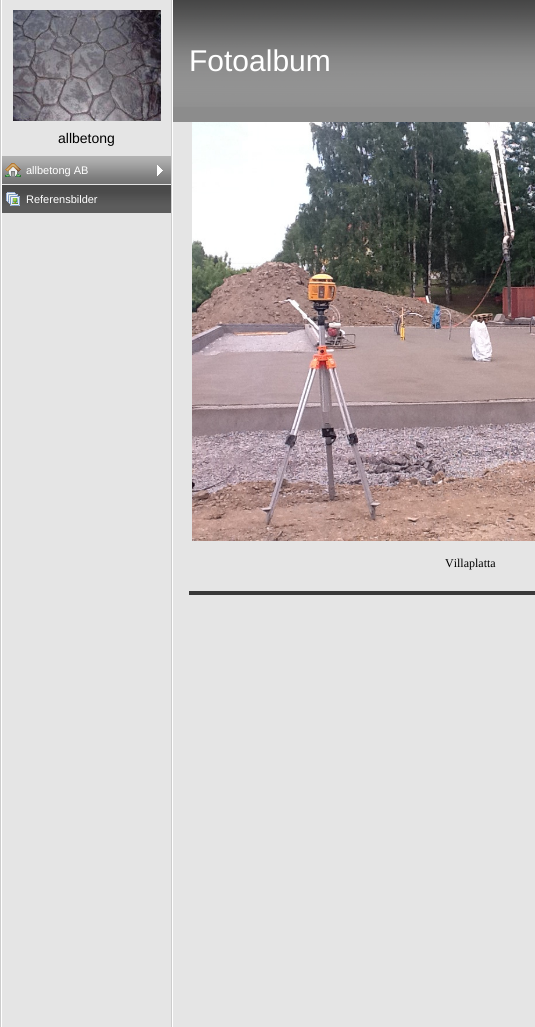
import math
import cairo

surface = cairo.ImageSurface(cairo.FORMAT_RGB24, 535, 1027)
c = cairo.Context(surface)
options = cairo.FontOptions()
options.set_hint_metrics(cairo.HINT_METRICS_OFF)
options.set_hint_style(cairo.HINT_STYLE_NONE)
c.set_font_options(options)
c.set_miter_limit(4)
def C(code):
 c.set_source_rgb(*(v / 255 for v in bytes.fromhex(code[-6:])))
def F(family, size, italic, bold):
 c.select_font_face(family, cairo.FONT_SLANT_ITALIC if italic else cairo.FONT_SLANT_NORMAL, cairo.FONT_WEIGHT_BOLD if bold else cairo.FONT_WEIGHT_NORMAL)
 c.set_font_size(size)
def T(x, y, s):
 c.move_to(x, y)
 c.show_text(s)
def R(x, y, w, h):
 c.rectangle(x, y, w, h)
 c.fill()
def I(path, x, y, w, h):
 c.save()
 c.set_source_surface(cairo.ImageSurface.create_from_png(path), x, y)
 c.rectangle(x, y, w, h)
 c.fill()
 c.restore()
C('ffffff')
c.paint()
C('cccccc')
R(0,0,1,1027)
C('e5e5e5')
R(2,0,169,1027)
I('1.png',13,10,148,111)
F('Liberation Sans',14,0,0)
C('000000')
T(58,143,'allbetong')
I('2.png',2,156,169,28)
I('3.png',5,163,16,14)
I('4.png',157,165,6,11)
F('Liberation Sans',11,0,0)
C('ffffff')
T(26,174,'allbetong AB')
I('5.png',2,185,169,28)
I('6.png',6,192,14,14)
T(26,203,'Referensbilder')
C('cccccc')
R(171,0,1,1027)
C('e5e5e5')
R(173,122,362,905)
C('8c8c8c')
R(173,0,362,122)
I('7.png',173,0,362,107)
F('Liberation Sans',30,0,0)
C('ffffff')
T(189,71,'Fotoalbum')
I('8.png',192,122,343,419)
F('Liberation Serif',12,0,0)
C('000000')
T(445,567,'Villaplatta')
C('393939')
R(189,591,346,4)
surface.write_to_png('o.png')
